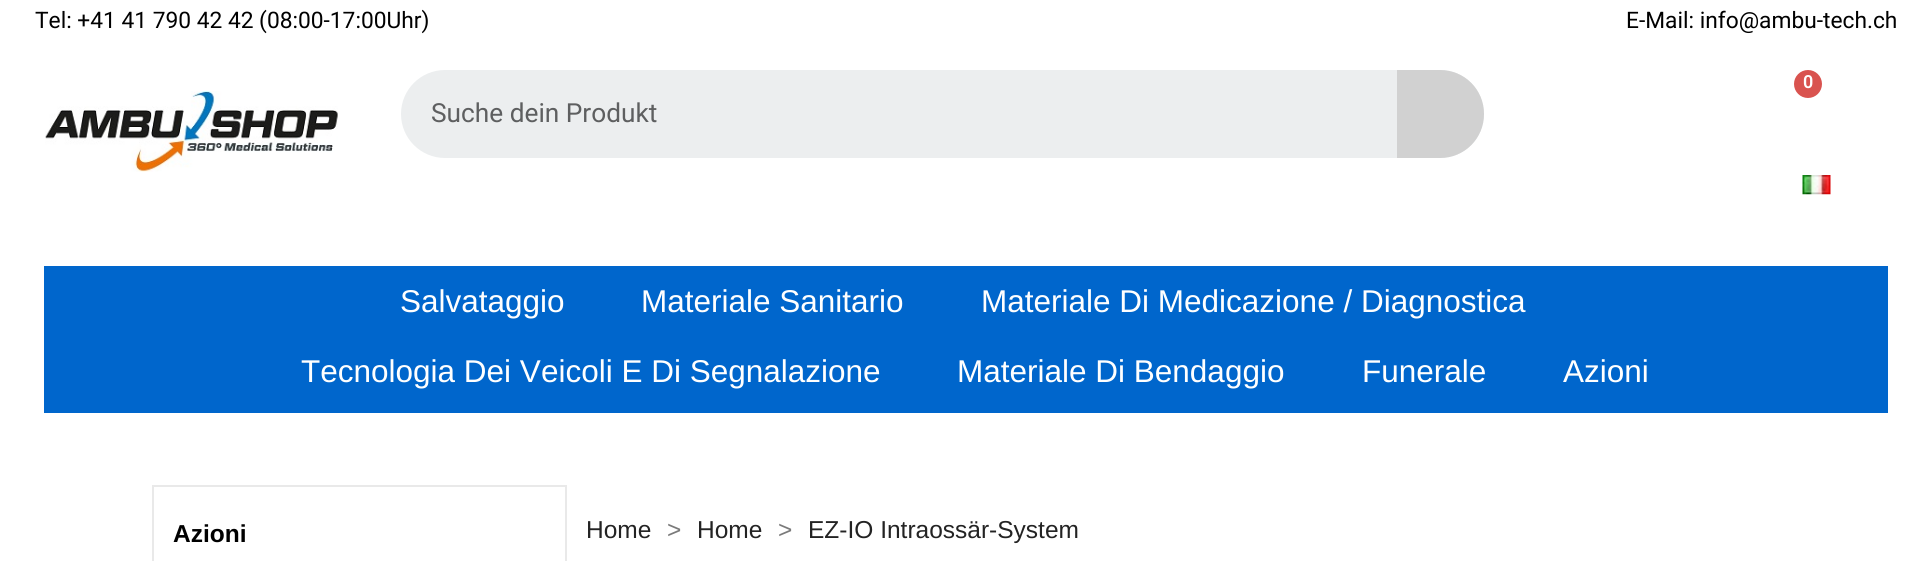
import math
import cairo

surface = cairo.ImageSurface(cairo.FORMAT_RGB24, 1931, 561)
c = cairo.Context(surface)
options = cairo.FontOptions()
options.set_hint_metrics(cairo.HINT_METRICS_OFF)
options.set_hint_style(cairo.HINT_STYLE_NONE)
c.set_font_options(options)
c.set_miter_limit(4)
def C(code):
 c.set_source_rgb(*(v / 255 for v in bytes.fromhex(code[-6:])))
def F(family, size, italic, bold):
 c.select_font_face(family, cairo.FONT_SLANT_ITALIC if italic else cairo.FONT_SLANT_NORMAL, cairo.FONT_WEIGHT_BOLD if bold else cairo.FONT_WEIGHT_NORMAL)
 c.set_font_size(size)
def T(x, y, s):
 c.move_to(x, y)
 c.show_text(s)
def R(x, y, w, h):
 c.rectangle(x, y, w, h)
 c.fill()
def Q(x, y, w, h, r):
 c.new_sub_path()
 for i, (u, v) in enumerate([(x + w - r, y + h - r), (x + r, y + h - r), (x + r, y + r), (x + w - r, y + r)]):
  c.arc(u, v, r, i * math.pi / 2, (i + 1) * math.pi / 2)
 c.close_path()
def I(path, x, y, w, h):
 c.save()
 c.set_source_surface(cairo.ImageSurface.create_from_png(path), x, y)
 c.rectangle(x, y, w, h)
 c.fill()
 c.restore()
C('ffffff')
c.paint()
F('Roboto',22.75,0,0)
C('000000')
T(35,28,'Tel: +41 41 790 42 42 (08:00-17:00Uhr)')
T(1626,28,'E-Mail: info@ambu-tech.ch')
C('d9534f')
c.new_path()
c.arc(1808,84,14,0,2 * math.pi)
c.fill()
F('Roboto SemiBold',18,0,0)
C('ffffff')
T(1803,88,'0')
I('1.png',1802,175,29,20)
I('2.png',45,91,293,81)
C('eceeef')
Q(401,70,1083,88,44)
c.fill()
F('Roboto',26.25,0,0)
C('5e5f60')
T(431,122,'Suche dein Produkt')
c.set_source_rgba(0.812,0.812,0.812,0.93)
c.new_path()
c.move_to(1397,70)
c.line_to(1440,70)
c.curve_to(1464.5,70,1484,89.5,1484,114)
c.curve_to(1484,138.5,1464.5,158,1440,158)
c.line_to(1397,158)
c.close_path()
c.fill()
C('0066cc')
R(44,266,1844,147)
F('Liberation Sans',31.5,0,0)
C('ffffff')
T(400,312,'Salvataggio')
T(641,312,'Materiale Sanitario')
T(981,312,'Materiale Di Medicazione / Diagnostica')
T(301,382,'Tecnologia Dei Veicoli E Di Segnalazione')
T(957,382,'Materiale Di Bendaggio')
T(1362,382,'Funerale')
T(1563,382,'Azioni')
c.rectangle(153,486,413,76)
C('e9e9e9')
c.stroke()
F('Liberation Sans',24.5,0,1)
C('000000')
T(173,542,'Azioni')
F('Liberation Sans',24.5,0,0)
C('232323')
T(586,538,'Home')
C('7a7a7a')
T(667,538,'>')
C('232323')
T(697,538,'Home')
C('7a7a7a')
T(778,538,'>')
C('232323')
T(808,538,'EZ-IO Intraossär-System')
surface.write_to_png('o.png')
